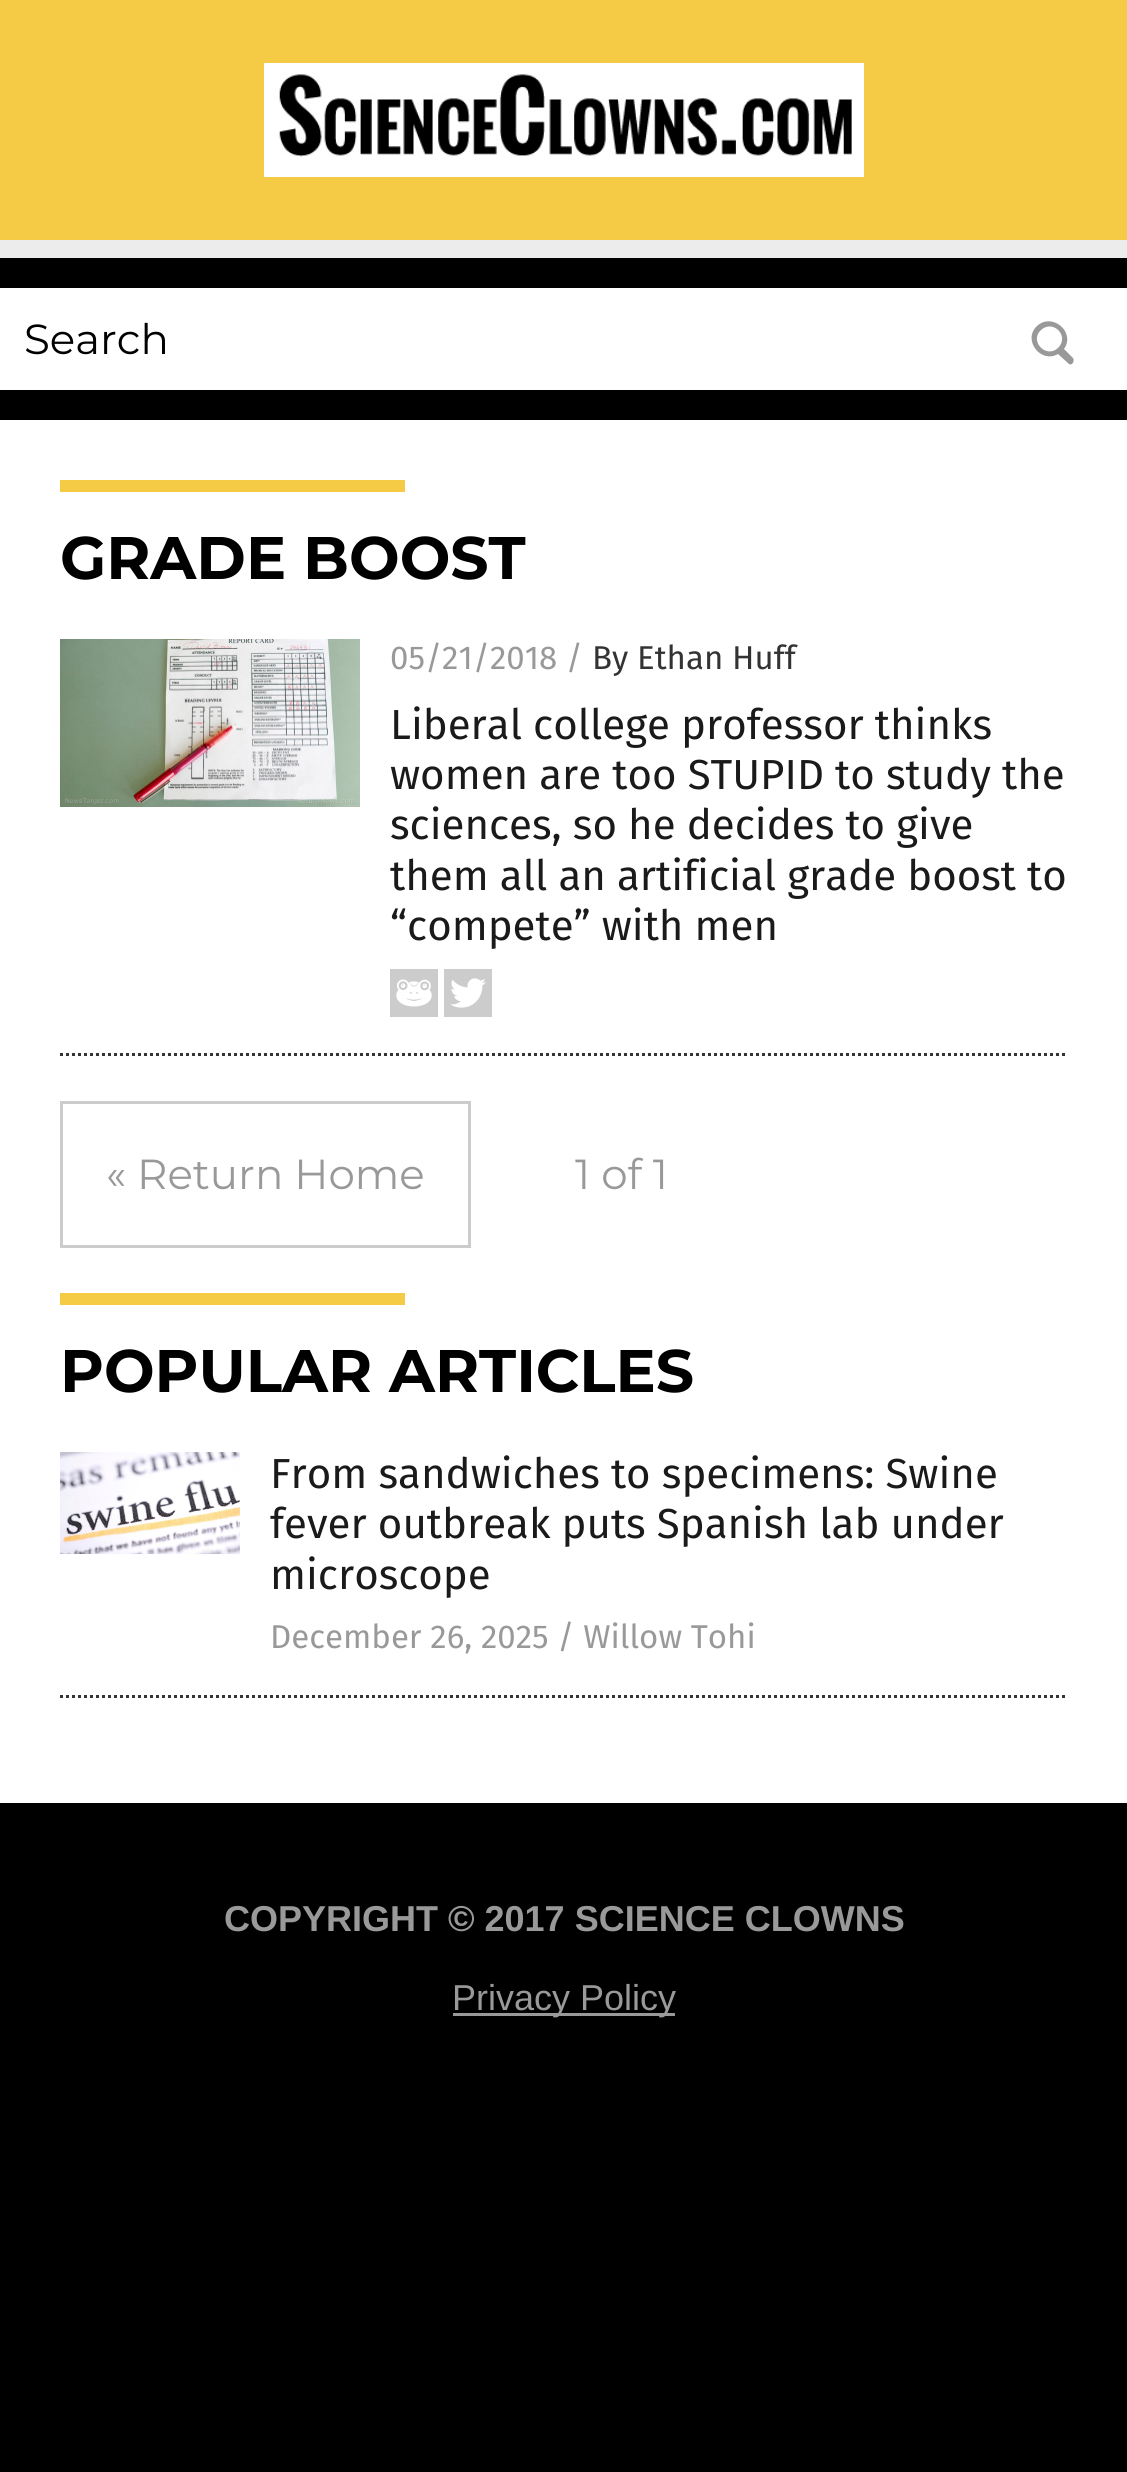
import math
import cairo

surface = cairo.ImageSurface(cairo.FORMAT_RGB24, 1127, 2472)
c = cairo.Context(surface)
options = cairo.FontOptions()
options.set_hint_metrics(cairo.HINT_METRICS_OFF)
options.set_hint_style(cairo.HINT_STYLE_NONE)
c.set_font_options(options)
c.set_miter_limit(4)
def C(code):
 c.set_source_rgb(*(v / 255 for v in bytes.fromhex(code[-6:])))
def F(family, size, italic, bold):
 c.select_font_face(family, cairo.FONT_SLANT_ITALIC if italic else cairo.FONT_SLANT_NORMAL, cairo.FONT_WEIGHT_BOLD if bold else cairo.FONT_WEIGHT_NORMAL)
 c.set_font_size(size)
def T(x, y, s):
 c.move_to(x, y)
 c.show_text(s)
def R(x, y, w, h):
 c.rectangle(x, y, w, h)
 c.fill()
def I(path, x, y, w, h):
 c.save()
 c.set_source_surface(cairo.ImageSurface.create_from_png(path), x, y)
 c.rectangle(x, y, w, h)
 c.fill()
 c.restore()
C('000000')
c.paint()
C('f5ca45')
R(0,0,1127,240)
I('1.png',264,63,600,114)
C('ececec')
R(0,240,1127,18)
C('ffffff')
R(0,288,1127,102)
F('Montserrat',42,0,0)
C('000000')
T(24,354,'Search')
C('999999')
c.new_path()
c.move_to(1073,358)
c.line_to(1064,349)
c.curve_to(1076,332,1052,312,1037,326)
c.curve_to(1022,340,1041,364,1058,354)
c.line_to(1069,364)
c.curve_to(1072,366,1075,361,1073,358)
c.close_path()
c.move_to(1058,348)
c.curve_to(1046,359,1029,341,1041,330)
c.curve_to(1053,319,1070,336,1058,348)
c.close_path()
c.fill()
C('ffffff')
R(0,420,1127,1383)
C('f5ca45')
R(60,480,345,12)
F('Montserrat',60,0,1)
C('000000')
T(60,579,'GRADE BOOST')
c.new_path()
c.move_to(60,1054.5)
c.line_to(1068,1054.5)
C('343434')
c.set_line_width(3)
c.set_dash([3,3])
c.stroke()
I('2.png',60,639,300,168)
F('Fira Sans',33,0,0)
C('999999')
T(390,669,'05/21/2018 /')
C('333333')
T(592,669,'By Ethan Huff')
F('Fira Sans',42,0,0)
C('1a1a1a')
T(390,739,'Liberal college professor thinks')
T(390,789,'women are too STUPID to study the')
T(390,839,'sciences, so he decides to give')
T(390,890,'them all an artificial grade boost to')
T(390,940,'“compete” with men')
I('3.png',390,969,48,48)
I('4.png',444,969,48,48)
c.rectangle(61.5,1102.5,408,144)
C('cccccc')
c.set_dash([])
c.stroke()
F('Montserrat',42,0,0)
C('999999')
T(106,1189,'« Return Home')
T(575,1189,'1 of 1')
C('f5ca45')
R(60,1293,345,12)
F('Montserrat',60,0,1)
C('000000')
T(60,1392,'POPULAR ARTICLES')
c.new_path()
c.move_to(60,1696.5)
c.line_to(1068,1696.5)
C('343434')
c.set_dash([3,3])
c.stroke()
I('5.png',60,1452,180,102)
F('Fira Sans',42,0,0)
C('1a1a1a')
T(270,1488,'From sandwiches to specimens: Swine')
T(270,1538,'fever outbreak puts Spanish lab under')
T(270,1589,'microscope')
F('Fira Sans',33,0,0)
C('999999')
T(270,1648,'December 26, 2025 / Willow Tohi')
F('Liberation Sans',36,0,1)
T(224,1931,'COPYRIGHT © 2017 SCIENCE CLOWNS')
R(453,2013,222,3)
F('Liberation Sans',36,0,0)
T(452,2010,'Privacy Policy')
surface.write_to_png('o.png')
